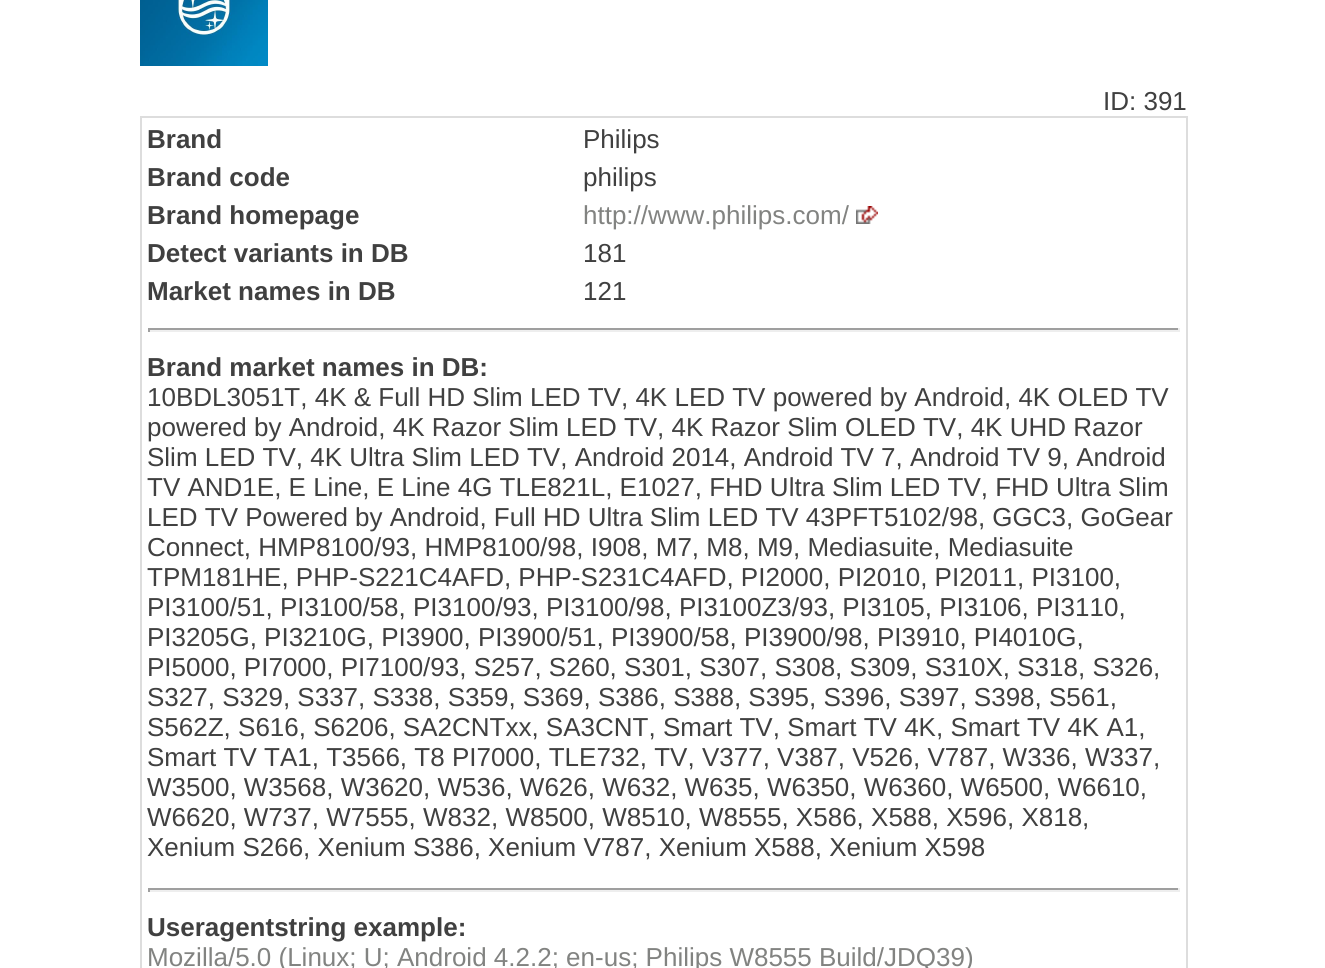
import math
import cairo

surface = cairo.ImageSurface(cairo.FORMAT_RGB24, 1325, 968)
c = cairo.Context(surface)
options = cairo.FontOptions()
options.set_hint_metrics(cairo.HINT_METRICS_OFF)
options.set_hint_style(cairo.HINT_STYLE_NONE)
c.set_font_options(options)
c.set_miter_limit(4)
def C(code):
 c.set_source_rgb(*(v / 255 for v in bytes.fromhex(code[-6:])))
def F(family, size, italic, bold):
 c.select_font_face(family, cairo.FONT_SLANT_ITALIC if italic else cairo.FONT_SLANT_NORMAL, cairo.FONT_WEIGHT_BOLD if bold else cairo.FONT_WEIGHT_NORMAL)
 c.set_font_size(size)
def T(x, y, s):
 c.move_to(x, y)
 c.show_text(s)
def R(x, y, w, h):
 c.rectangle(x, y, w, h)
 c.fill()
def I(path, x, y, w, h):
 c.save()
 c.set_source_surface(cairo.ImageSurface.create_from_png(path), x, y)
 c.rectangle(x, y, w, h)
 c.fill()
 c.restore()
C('ffffff')
c.paint()
I('1.png',140,0,128,66)
F('Liberation Sans',26,0,0)
C('404040')
T(1103,110,'ID: 391')
c.rectangle(141,117,1046,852)
C('dddddd')
c.stroke()
F('Liberation Sans',26,0,1)
C('404040')
T(147,148,'Brand')
F('Liberation Sans',26,0,0)
T(583,148,'Philips')
F('Liberation Sans',26,0,1)
T(147,186,'Brand code')
F('Liberation Sans',26,0,0)
T(583,186,'philips')
F('Liberation Sans',26,0,1)
T(147,224,'Brand homepage')
F('Liberation Sans',26,0,0)
C('828381')
T(583,224,'http://www.philips.com/')
I('2.png',856,206,22,18)
F('Liberation Sans',26,0,1)
C('404040')
T(147,262,'Detect variants in DB')
F('Liberation Sans',26,0,0)
T(583,262,'181')
F('Liberation Sans',26,0,1)
T(147,300,'Market names in DB')
F('Liberation Sans',26,0,0)
T(583,300,'121')
C('9f9f9f')
R(148,328,1032,2)
C('eeeeee')
R(1178,328,2,4)
R(148,330,1032,2)
C('9f9f9f')
R(148,328,2,4)
F('Liberation Sans',26,0,1)
C('404040')
T(147,376,'Brand market names in DB:')
F('Liberation Sans',26,0,0)
T(147,406,'10BDL3051T, 4K & Full HD Slim LED TV, 4K LED TV powered by Android, 4K OLED TV')
T(147,436,'powered by Android, 4K Razor Slim LED TV, 4K Razor Slim OLED TV, 4K UHD Razor')
T(147,466,'Slim LED TV, 4K Ultra Slim LED TV, Android 2014, Android TV 7, Android TV 9, Android')
T(147,496,'TV AND1E, E Line, E Line 4G TLE821L, E1027, FHD Ultra Slim LED TV, FHD Ultra Slim')
T(147,526,'LED TV Powered by Android, Full HD Ultra Slim LED TV 43PFT5102/98, GGC3, GoGear')
T(147,556,'Connect, HMP8100/93, HMP8100/98, I908, M7, M8, M9, Mediasuite, Mediasuite')
T(147,586,'TPM181HE, PHP-S221C4AFD, PHP-S231C4AFD, PI2000, PI2010, PI2011, PI3100,')
T(147,616,'PI3100/51, PI3100/58, PI3100/93, PI3100/98, PI3100Z3/93, PI3105, PI3106, PI3110,')
T(147,646,'PI3205G, PI3210G, PI3900, PI3900/51, PI3900/58, PI3900/98, PI3910, PI4010G,')
T(147,676,'PI5000, PI7000, PI7100/93, S257, S260, S301, S307, S308, S309, S310X, S318, S326,')
T(147,706,'S327, S329, S337, S338, S359, S369, S386, S388, S395, S396, S397, S398, S561,')
T(147,736,'S562Z, S616, S6206, SA2CNTxx, SA3CNT, Smart TV, Smart TV 4K, Smart TV 4K A1,')
T(147,766,'Smart TV TA1, T3566, T8 PI7000, TLE732, TV, V377, V387, V526, V787, W336, W337,')
T(147,796,'W3500, W3568, W3620, W536, W626, W632, W635, W6350, W6360, W6500, W6610,')
T(147,826,'W6620, W737, W7555, W832, W8500, W8510, W8555, X586, X588, X596, X818,')
T(147,856,'Xenium S266, Xenium S386, Xenium V787, Xenium X588, Xenium X598')
C('9f9f9f')
R(148,888,1032,2)
C('eeeeee')
R(1178,888,2,4)
R(148,890,1032,2)
C('9f9f9f')
R(148,888,2,4)
F('Liberation Sans',26,0,1)
C('404040')
T(147,936,'Useragentstring example:')
F('Liberation Sans',26,0,0)
C('828381')
T(147,966,'Mozilla/5.0 (Linux; U; Android 4.2.2; en-us; Philips W8555 Build/JDQ39)')
surface.write_to_png('o.png')
